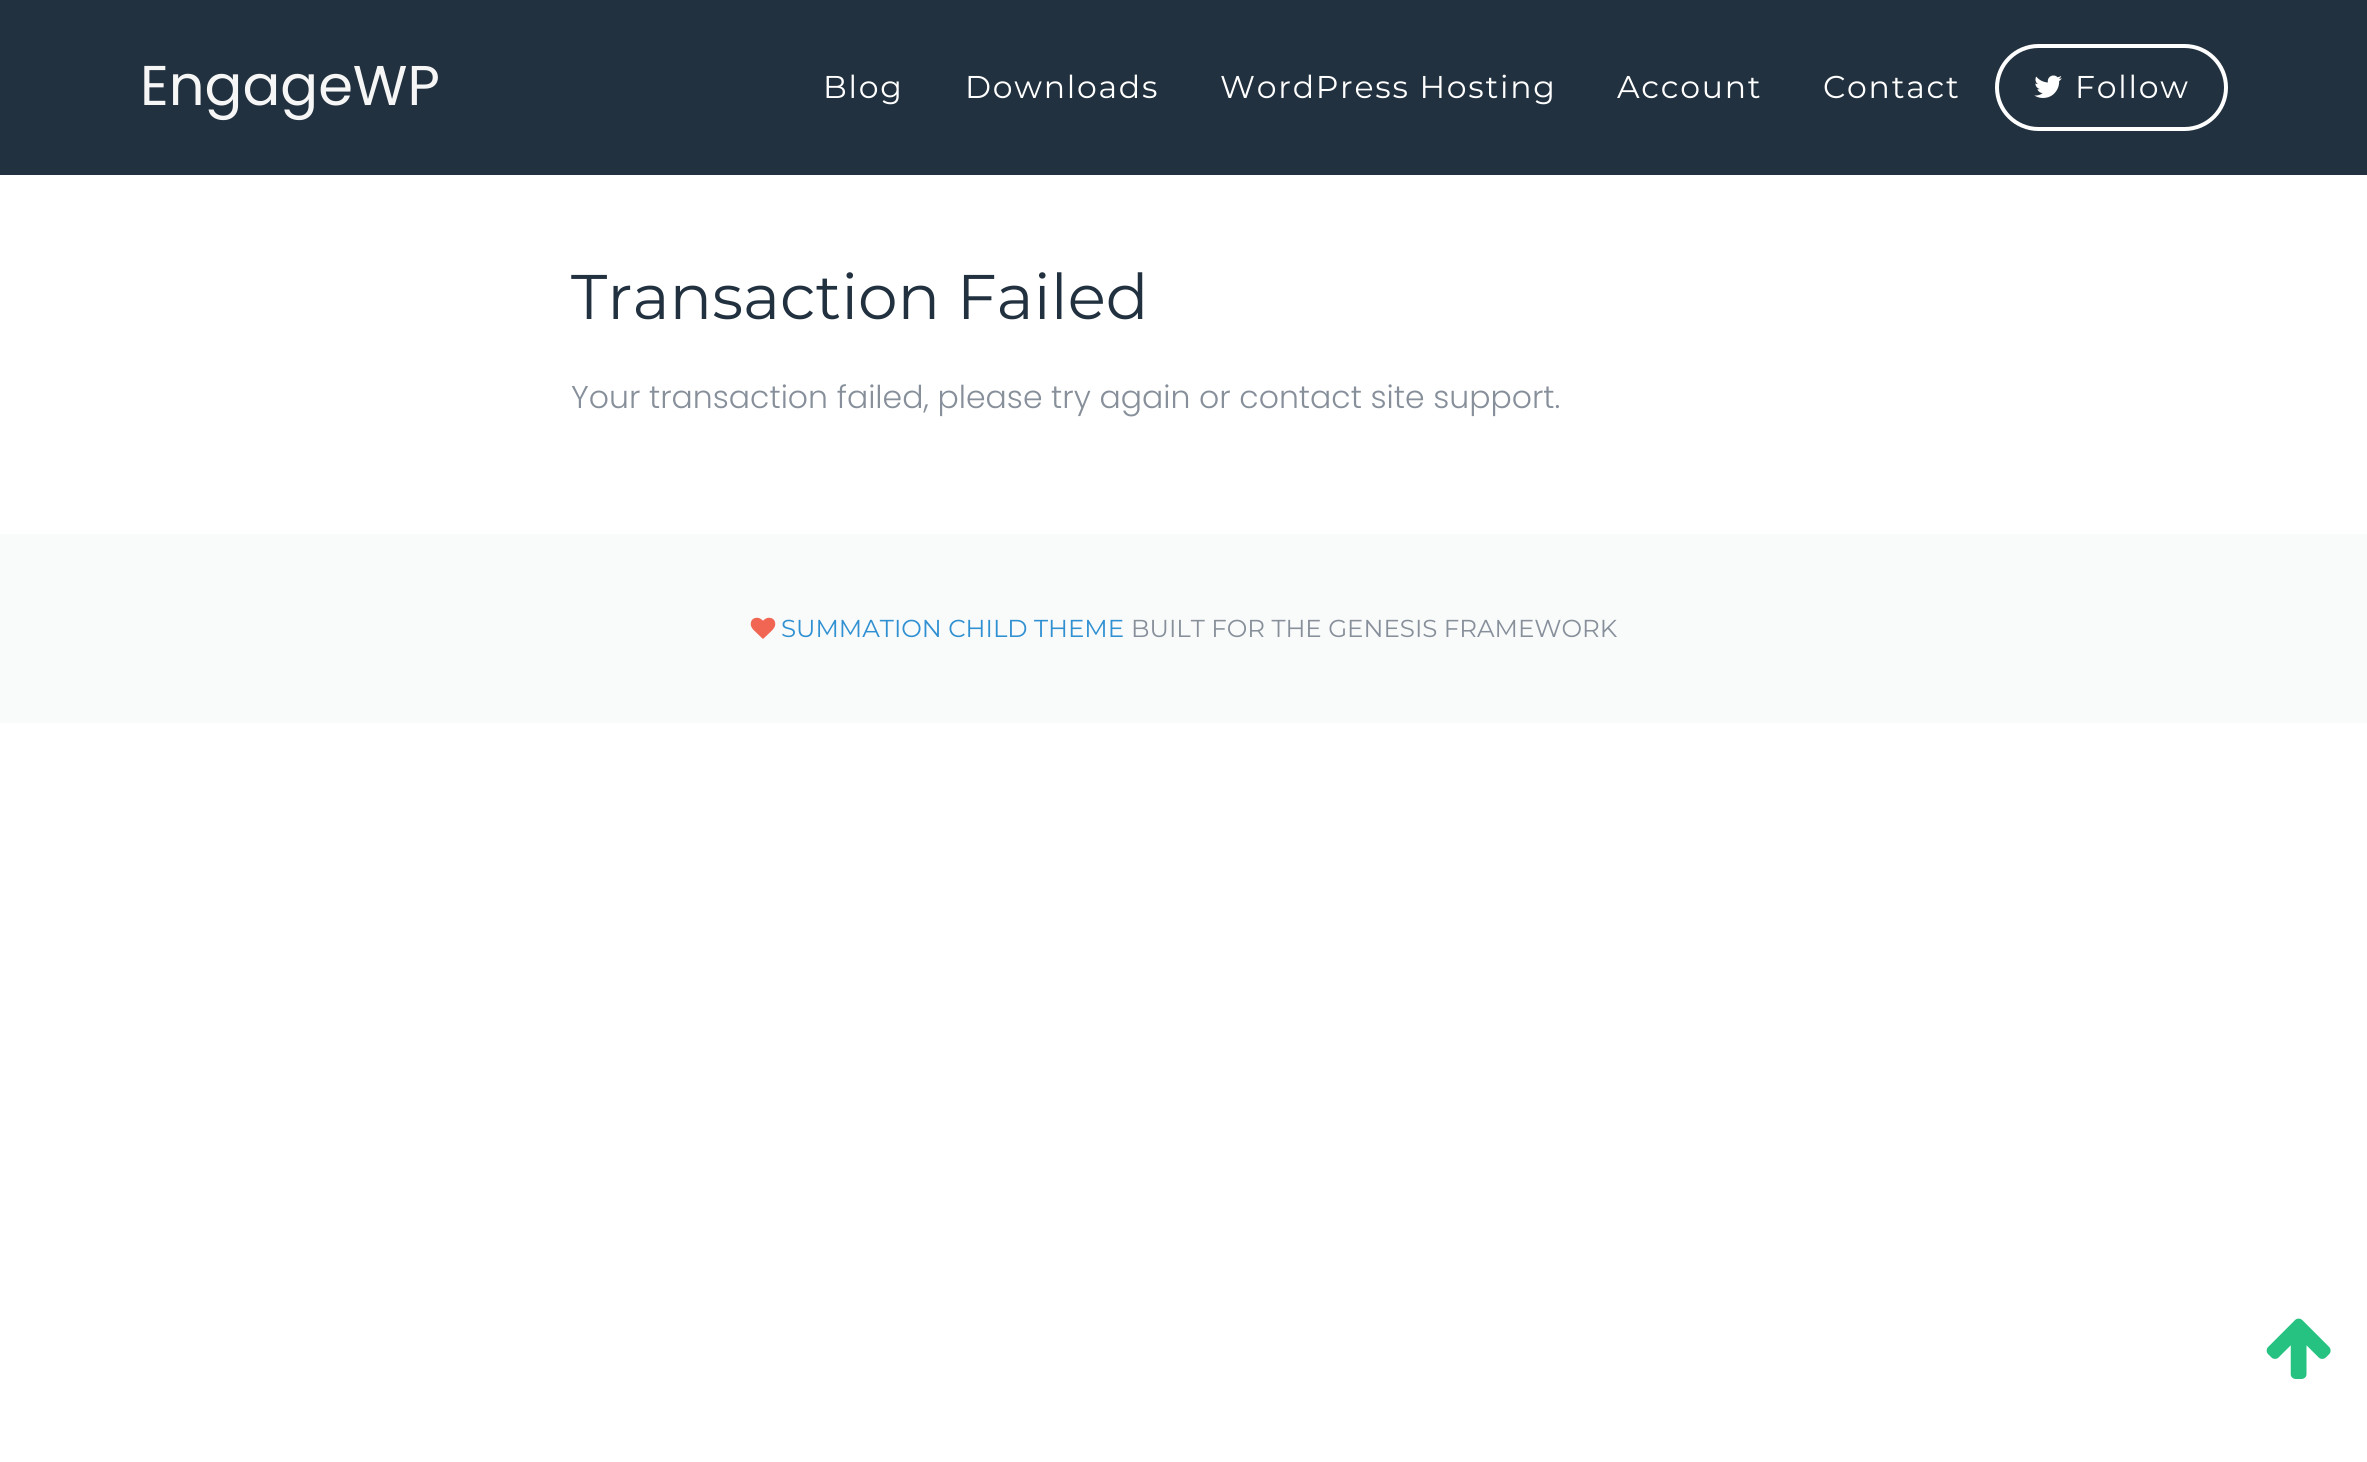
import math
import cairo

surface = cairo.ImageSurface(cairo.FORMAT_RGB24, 2367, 1462)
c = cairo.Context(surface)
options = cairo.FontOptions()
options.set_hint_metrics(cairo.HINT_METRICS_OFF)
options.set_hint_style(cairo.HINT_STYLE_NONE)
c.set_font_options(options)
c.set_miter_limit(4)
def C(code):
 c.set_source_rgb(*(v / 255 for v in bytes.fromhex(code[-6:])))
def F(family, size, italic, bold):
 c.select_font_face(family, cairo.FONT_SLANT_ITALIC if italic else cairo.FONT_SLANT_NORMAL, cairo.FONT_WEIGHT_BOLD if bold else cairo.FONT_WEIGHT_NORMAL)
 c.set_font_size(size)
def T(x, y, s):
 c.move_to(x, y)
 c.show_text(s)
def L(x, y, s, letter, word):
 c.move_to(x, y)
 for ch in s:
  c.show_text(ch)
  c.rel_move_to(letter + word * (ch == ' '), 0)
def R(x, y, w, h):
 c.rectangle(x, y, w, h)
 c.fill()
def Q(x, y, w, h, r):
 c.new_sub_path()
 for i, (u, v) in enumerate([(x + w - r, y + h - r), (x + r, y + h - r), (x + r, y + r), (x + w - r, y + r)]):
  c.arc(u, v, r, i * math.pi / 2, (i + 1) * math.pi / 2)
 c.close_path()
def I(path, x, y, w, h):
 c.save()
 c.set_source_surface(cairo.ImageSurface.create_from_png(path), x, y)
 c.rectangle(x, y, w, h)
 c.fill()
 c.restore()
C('ffffff')
c.paint()
C('22313f')
R(0,0,2367,175)
F('Poppins',56,0,0)
C('f6f6f6')
T(140,105,'EngageWP')
F('Montserrat',31.5,0,0)
C('ffffff')
L(823,98,'Blog',1.75,0)
L(965,98,'Downloads',1.75,0)
L(1220,98,'WordPress Hosting',1.75,0)
L(1617,98,'Account',1.75,0)
L(1823,98,'Contact',1.75,0)
Q(1997,46,229,83,41.5)
c.set_line_width(4)
c.stroke()
I('1.png',2034,75,28,23)
L(2075,98,'Follow',1.75,0)
F('Montserrat',63,0,0)
C('22313f')
T(571,319,'Transaction Failed')
F('Poppins Light',31.5,0,0)
C('868f9a')
T(571,408,'Your transaction failed, please try again or contact site support.')
C('f9fafa')
R(0,534,2367,189)
I('2.png',750,617,26,22)
F('Montserrat',24.5,0,0)
C('2f90d2')
T(781,637,'SUMMATION CHILD THEME')
C('868f9a')
T(1131,637,'BUILT FOR THE GENESIS FRAMEWORK')
I('3.png',2266,1318,65,61)
surface.write_to_png('o.png')
